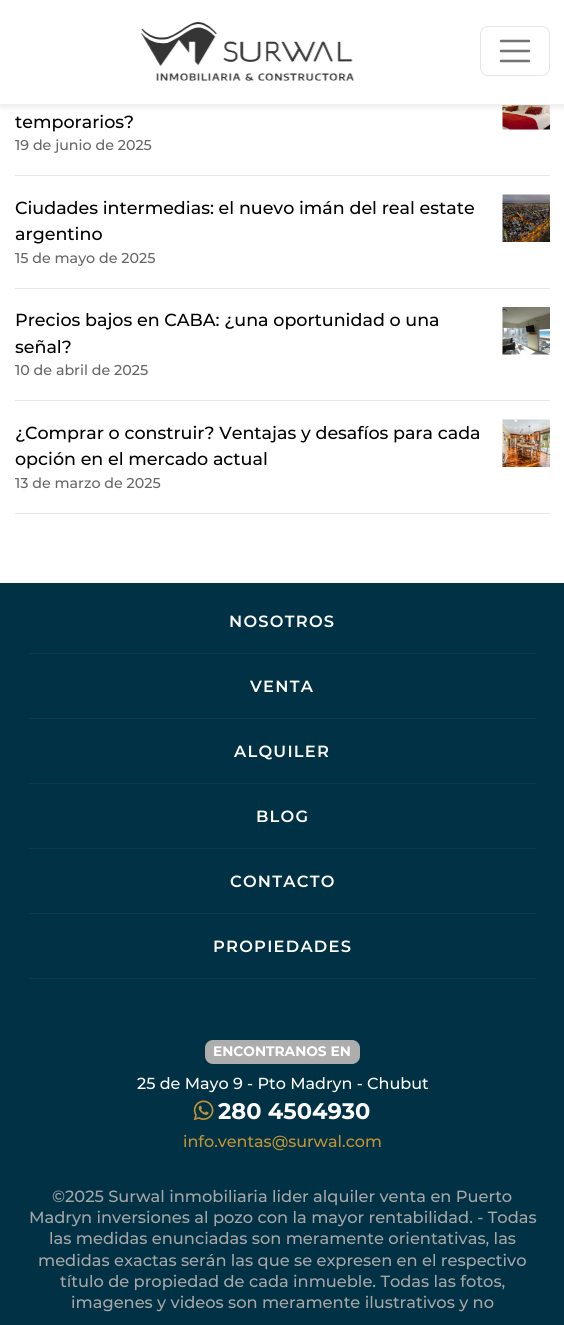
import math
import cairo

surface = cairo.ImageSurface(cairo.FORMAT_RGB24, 564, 1325)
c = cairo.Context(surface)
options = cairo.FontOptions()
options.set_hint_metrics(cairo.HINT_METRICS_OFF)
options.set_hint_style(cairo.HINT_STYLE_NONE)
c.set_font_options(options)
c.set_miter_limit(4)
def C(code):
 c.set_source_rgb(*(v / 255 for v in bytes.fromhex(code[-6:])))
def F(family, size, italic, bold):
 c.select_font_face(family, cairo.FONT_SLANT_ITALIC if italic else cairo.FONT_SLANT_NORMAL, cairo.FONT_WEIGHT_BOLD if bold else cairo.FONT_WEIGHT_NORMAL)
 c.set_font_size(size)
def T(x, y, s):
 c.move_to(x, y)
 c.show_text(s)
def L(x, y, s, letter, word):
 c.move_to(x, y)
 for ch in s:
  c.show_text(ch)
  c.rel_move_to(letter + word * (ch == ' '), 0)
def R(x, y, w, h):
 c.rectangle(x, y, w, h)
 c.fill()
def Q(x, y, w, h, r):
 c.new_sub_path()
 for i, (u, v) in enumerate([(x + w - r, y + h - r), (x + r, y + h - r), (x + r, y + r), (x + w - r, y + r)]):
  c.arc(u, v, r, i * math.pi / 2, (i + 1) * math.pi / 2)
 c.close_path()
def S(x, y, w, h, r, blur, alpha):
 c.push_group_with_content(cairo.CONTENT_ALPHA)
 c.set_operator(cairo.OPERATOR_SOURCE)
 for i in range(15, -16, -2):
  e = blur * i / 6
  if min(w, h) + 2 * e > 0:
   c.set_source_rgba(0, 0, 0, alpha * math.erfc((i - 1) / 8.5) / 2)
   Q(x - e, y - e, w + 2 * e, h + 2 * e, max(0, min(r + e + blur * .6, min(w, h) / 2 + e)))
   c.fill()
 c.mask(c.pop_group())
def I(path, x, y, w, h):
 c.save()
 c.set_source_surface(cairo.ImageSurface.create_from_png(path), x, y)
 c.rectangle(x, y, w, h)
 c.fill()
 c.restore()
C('ffffff')
c.paint()
I('2.png',502,105,48,25)
C('000000')
S(0,3,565,105,0,2.5,.07)
C('ffffff')
R(0,0,564,104)
C('f0f0f0')
R(0,104,564,1)
I('1.png',141,22,214,59)
Q(480.5,26.5,69,49,7.5)
C('e6e6e6')
c.set_line_width(1)
c.stroke()
c.new_path()
c.move_to(501,41)
c.line_to(529,41)
c.move_to(501,51)
c.line_to(529,51)
c.move_to(501,61)
c.line_to(529,61)
C('737373')
c.set_line_width(2.5)
c.set_line_cap(cairo.LINE_CAP_ROUND)
c.stroke()
C('e7e7e7')
R(15,175,535,1)
F('Montserrat Medium',17.5,0,0)
C('000000')
T(15,128,'temporarios?')
F('Montserrat Medium',14.25,0,0)
C('666666')
T(15,150,'19 de junio de 2025')
C('e7e7e7')
R(15,288,535,1)
F('Montserrat Medium',17.5,0,0)
C('000000')
T(15,214,'Ciudades intermedias: el nuevo imán del real estate')
I('3.png',502,194,48,48)
T(15,240,'argentino')
F('Montserrat Medium',14.25,0,0)
C('666666')
T(15,263,'15 de mayo de 2025')
C('e7e7e7')
R(15,400,535,1)
F('Montserrat Medium',17.5,0,0)
C('000000')
T(15,326,'Precios bajos en CABA: ¿una oportunidad o una')
I('4.png',502,307,48,48)
T(15,353,'señal?')
F('Montserrat Medium',14.25,0,0)
C('666666')
T(15,375,'10 de abril de 2025')
C('e7e7e7')
R(15,513,535,1)
F('Montserrat Medium',17.5,0,0)
C('000000')
T(15,439,'¿Comprar o construir? Ventajas y desafíos para cada')
I('5.png',502,419,48,48)
T(15,465,'opción en el mercado actual')
F('Montserrat Medium',14.25,0,0)
C('666666')
T(15,488,'13 de marzo de 2025')
C('013144')
R(0,583,564,742)
C('033f53')
R(29,653,507,1)
F('Montserrat SemiBold',16.25,0,0)
C('ffffff')
L(229,627,'NOSOTROS',1.25,0)
C('033f53')
R(29,718,507,1)
C('ffffff')
L(250,692,'VENTA',1.25,0)
C('033f53')
R(29,783,507,1)
C('ffffff')
L(234,757,'ALQUILER',1.25,0)
C('033f53')
R(29,848,507,1)
C('ffffff')
L(256,822,'BLOG',1.25,0)
C('033f53')
R(29,913,507,1)
C('ffffff')
L(230,887,'CONTACTO',1.25,0)
C('033f53')
R(29,978,507,1)
C('ffffff')
L(213,952,'PROPIEDADES',1.25,0)
C('adadad')
Q(205,1040,155,24,8)
c.fill()
F('Montserrat',13.75,0,1)
C('ffffff')
T(213,1056,'ENCONTRANOS EN')
F('Montserrat Medium',16,0,0)
T(137,1089,'25 de Mayo 9 - Pto Madryn - Chubut')
I('6.png',193,1100,21,21)
F('Montserrat',22.5,0,1)
T(218,1119,'280 4504930')
F('Montserrat Medium',16,0,0)
C('c19334')
T(183,1147,'info.ventas@surwal.com')
F('Montserrat Medium',16.25,0,0)
C('a6a6a6')
T(52,1202,'©2025 Surwal inmobiliaria lider alquiler venta en Puerto')
T(29,1223,'Madryn inversiones al pozo con la mayor rentabilidad. - Todas')
T(49,1244,'las medidas enunciadas son meramente orientativas, las')
T(38,1266,'medidas exactas serán las que se expresen en el respectivo')
T(60,1287,'título de propiedad de cada inmueble. Todas las fotos,')
T(71,1308,'imagenes y videos son meramente ilustrativos y no')
surface.write_to_png('o.png')
